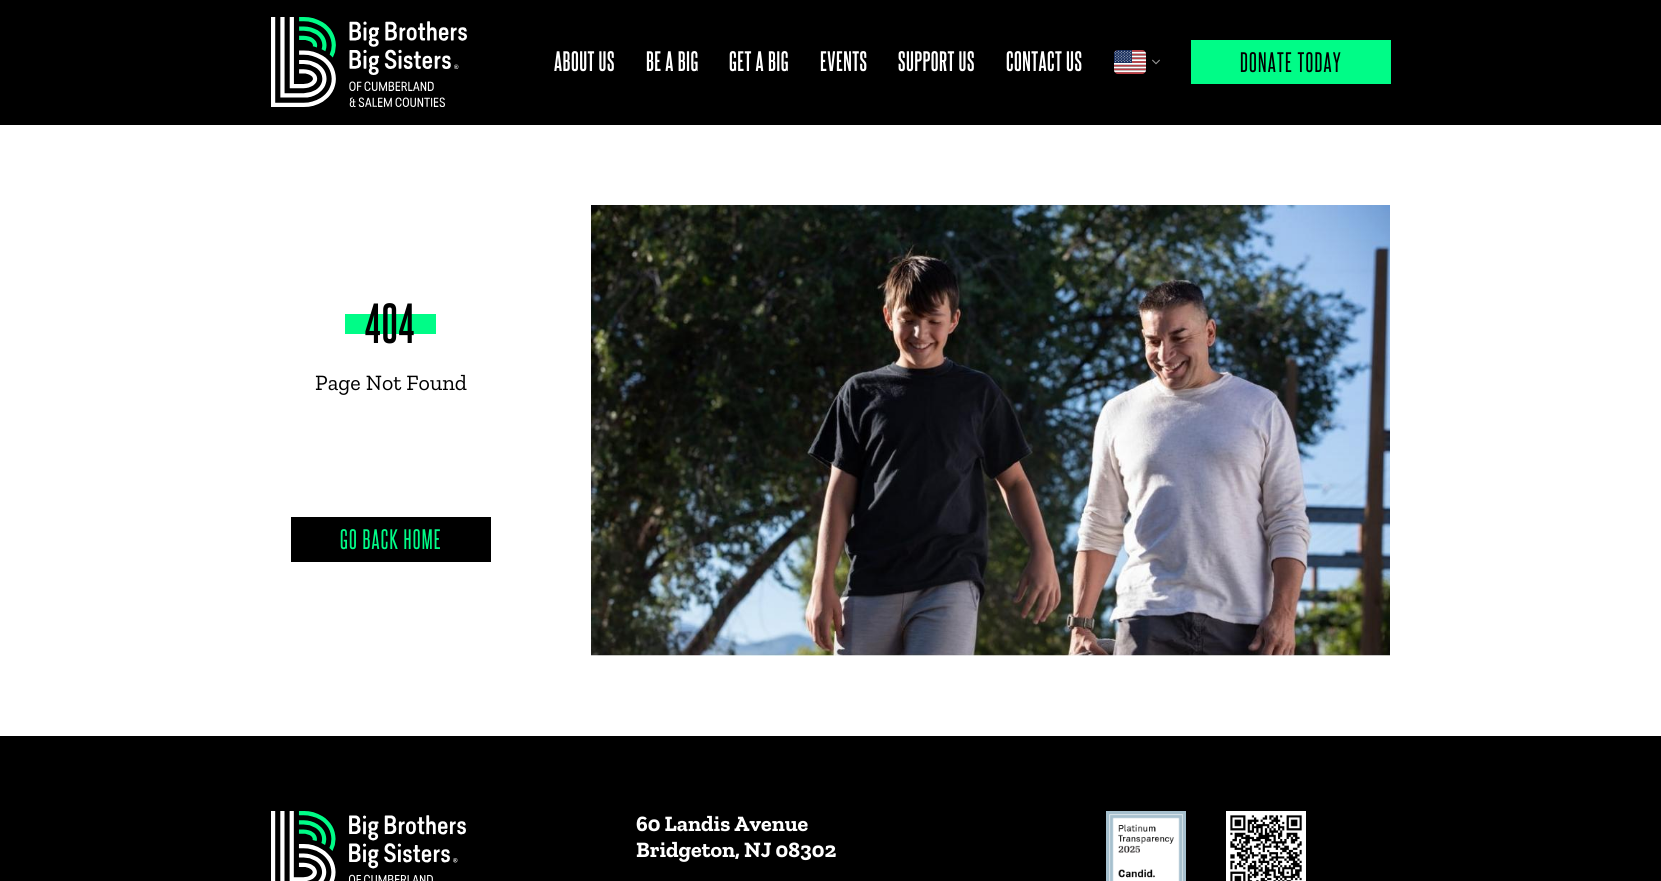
import math
import cairo

surface = cairo.ImageSurface(cairo.FORMAT_RGB24, 1661, 881)
c = cairo.Context(surface)
options = cairo.FontOptions()
options.set_hint_metrics(cairo.HINT_METRICS_OFF)
options.set_hint_style(cairo.HINT_STYLE_NONE)
c.set_font_options(options)
c.set_miter_limit(4)
def C(code):
 c.set_source_rgb(*(v / 255 for v in bytes.fromhex(code[-6:])))
def F(family, size, italic, bold):
 c.select_font_face(family, cairo.FONT_SLANT_ITALIC if italic else cairo.FONT_SLANT_NORMAL, cairo.FONT_WEIGHT_BOLD if bold else cairo.FONT_WEIGHT_NORMAL)
 c.set_font_size(size)
def T(x, y, s):
 c.move_to(x, y)
 c.show_text(s)
def L(x, y, s, letter, word):
 c.move_to(x, y)
 for ch in s:
  c.show_text(ch)
  c.rel_move_to(letter + word * (ch == ' '), 0)
def R(x, y, w, h):
 c.rectangle(x, y, w, h)
 c.fill()
def I(path, x, y, w, h):
 c.save()
 c.set_source_surface(cairo.ImageSurface.create_from_png(path), x, y)
 c.rectangle(x, y, w, h)
 c.fill()
 c.restore()
C('ffffff')
c.paint()
C('000000')
R(0,0,1661,125)
I('1.png',271,17,196,90)
F('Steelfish',24,0,1)
C('ffffff')
L(554,71,'ABOUT US',.5,0)
L(646,71,'BE A BIG',.5,0)
L(729,71,'GET A BIG',.5,0)
L(820,71,'EVENTS',.5,0)
L(898,71,'SUPPORT US',.5,0)
L(1006,71,'CONTACT US',.5,0)
I('2.png',1114,50,32,24)
I('3.png',1152,59,8,6)
C('00fc87')
R(1191,40,200,44)
F('Steelfish',24,0,0)
C('000000')
L(1240,72,'DONATE TODAY',1.25,0)
C('00fc87')
R(345,314,91,20)
F('Steelfish',48,0,1)
C('000000')
L(365,343,'404',1.25,0)
F('Zilla Slab',22,0,0)
T(315,390,'Page Not Found')
R(291,517,200,45)
F('Steelfish',24,0,0)
C('00fc87')
L(340,549,'GO BACK HOME',1.25,0)
I('4.png',591,205,799,451)
C('000000')
R(0,736,1661,145)
I('5.png',271,811,195,70)
F('Zilla Slab',22,0,1)
C('ffffff')
T(636,831,'60 Landis Avenue')
T(636,857,'Bridgeton, NJ 08302')
I('6.png',1106,811,80,70)
I('7.png',1226,811,80,70)
surface.write_to_png('o.png')
